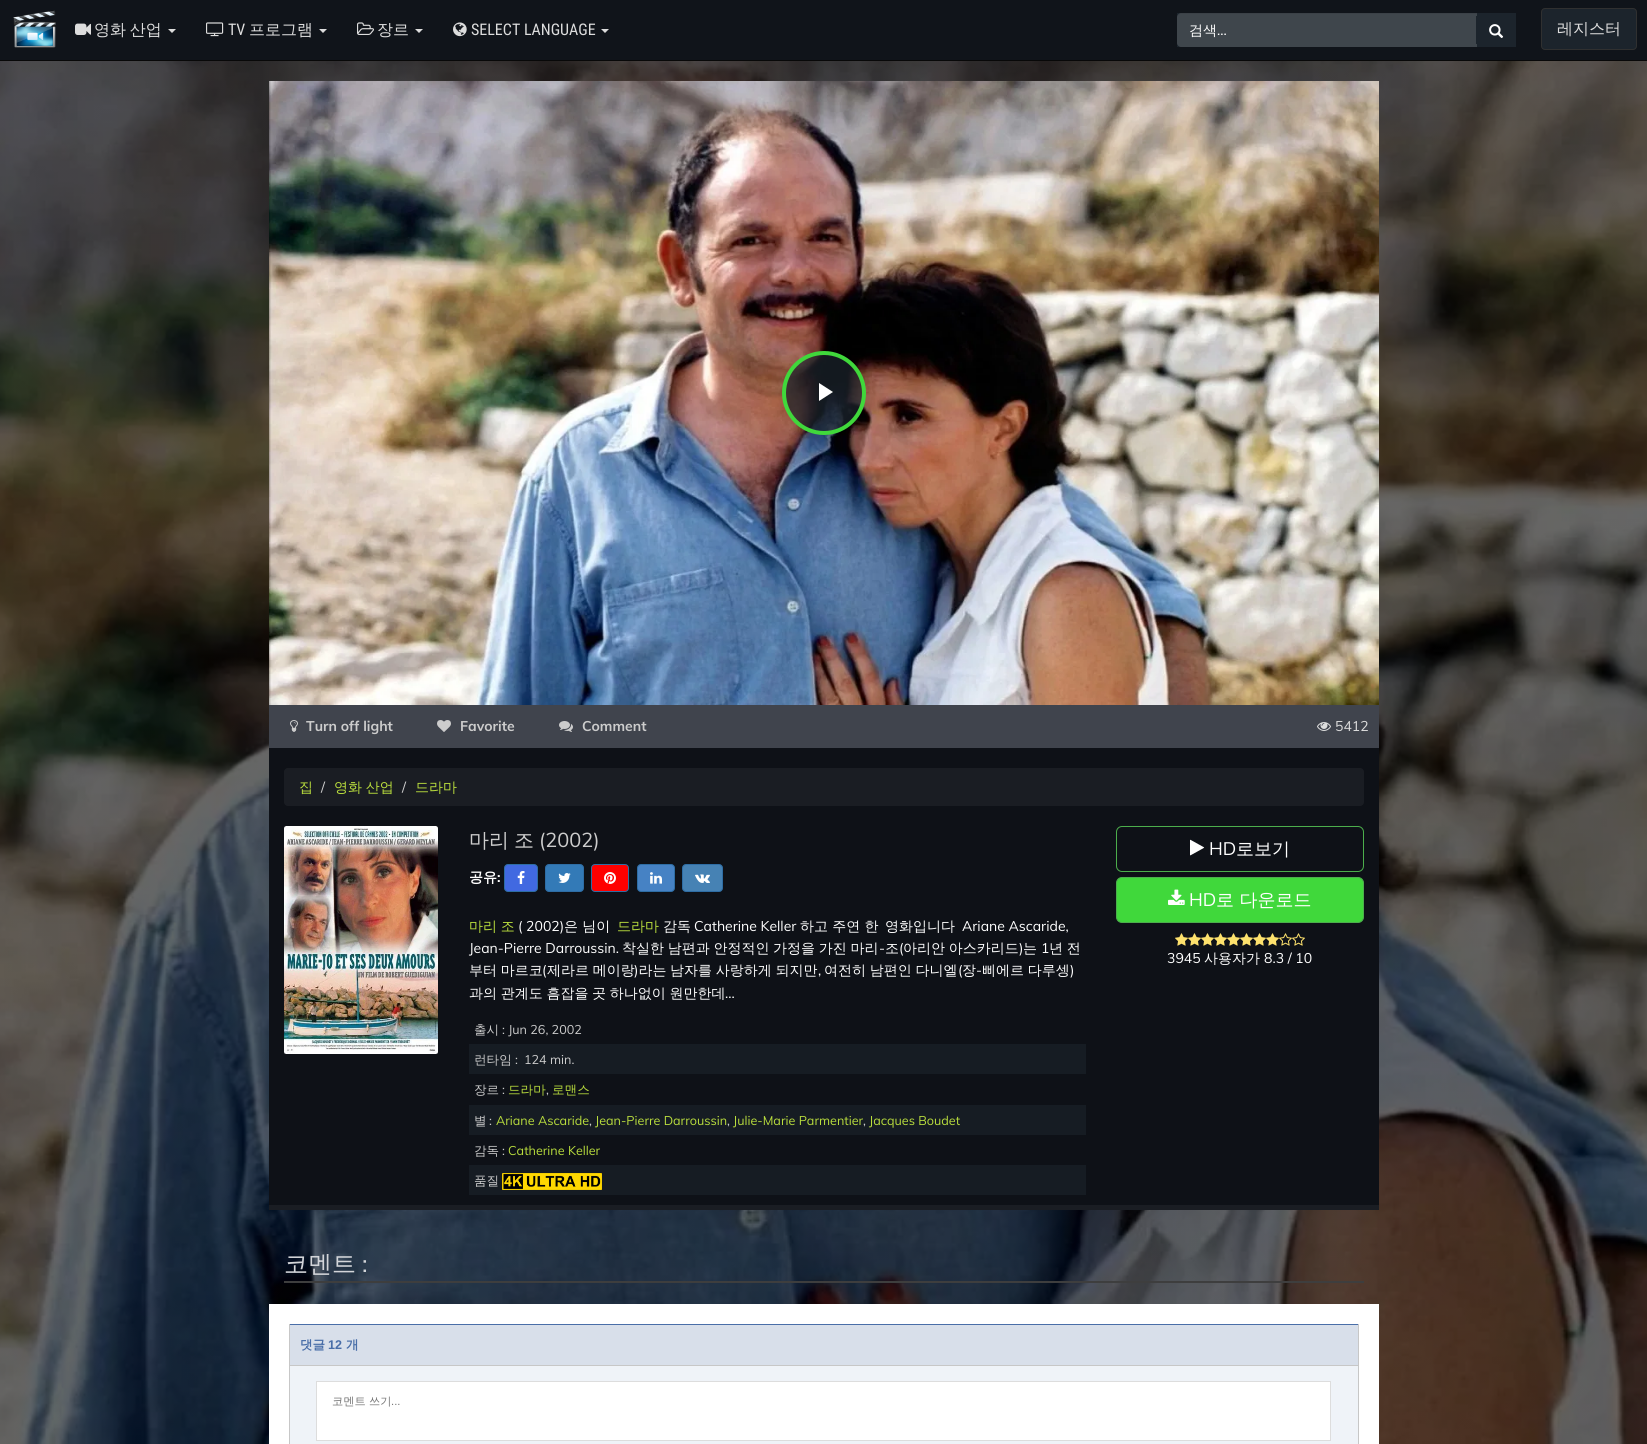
import math
import cairo

surface = cairo.ImageSurface(cairo.FORMAT_RGB24, 1647, 1444)
c = cairo.Context(surface)
options = cairo.FontOptions()
options.set_hint_metrics(cairo.HINT_METRICS_OFF)
options.set_hint_style(cairo.HINT_STYLE_NONE)
c.set_font_options(options)
c.set_miter_limit(4)
def C(code):
 c.set_source_rgb(*(v / 255 for v in bytes.fromhex(code[-6:])))
def F(family, size, italic, bold):
 c.select_font_face(family, cairo.FONT_SLANT_ITALIC if italic else cairo.FONT_SLANT_NORMAL, cairo.FONT_WEIGHT_BOLD if bold else cairo.FONT_WEIGHT_NORMAL)
 c.set_font_size(size)
def T(x, y, s):
 c.move_to(x, y)
 c.show_text(s)
def L(x, y, s, letter, word):
 c.move_to(x, y)
 for ch in s:
  c.show_text(ch)
  c.rel_move_to(letter + word * (ch == ' '), 0)
def R(x, y, w, h):
 c.rectangle(x, y, w, h)
 c.fill()
def Q(x, y, w, h, r):
 c.new_sub_path()
 for i, (u, v) in enumerate([(x + w - r, y + h - r), (x + r, y + h - r), (x + r, y + r), (x + w - r, y + r)]):
  c.arc(u, v, r, i * math.pi / 2, (i + 1) * math.pi / 2)
 c.close_path()
def I(path, x, y, w, h):
 c.save()
 c.set_source_surface(cairo.ImageSurface.create_from_png(path), x, y)
 c.rectangle(x, y, w, h)
 c.fill()
 c.restore()
C('ffffff')
c.paint()
I('1.png',0,61,1647,1383)
C('10141a')
R(0,0,1647,60)
C('080808')
R(0,60,1647,1)
I('2.png',13,10,43,38)
I('3.png',75,23,16,12)
F('WenQuanYi Zen Hei Medium',16,0,0)
C('dddddd')
L(94,35,'영화 산업',0,-1)
c.new_path()
c.move_to(168,29)
c.line_to(176,29)
c.line_to(172,33)
c.close_path()
c.fill()
I('4.png',206,22,18,15)
F('Roboto Condensed',16,0,0)
T(228,35,'TV')
F('WenQuanYi Zen Hei Medium',16,0,0)
T(249,35,'프로그램')
c.new_path()
c.move_to(319,29)
c.line_to(327,29)
c.line_to(323,33)
c.close_path()
c.fill()
I('5.png',357,22,17,13)
T(377,35,'장르')
c.new_path()
c.move_to(415,29)
c.line_to(423,29)
c.line_to(419,33)
c.close_path()
c.fill()
I('6.png',453,22,14,15)
F('Roboto Condensed',16,0,0)
T(471,35,'SELECT LANGUAGE')
c.new_path()
c.move_to(601,29)
c.line_to(609,29)
c.line_to(605,33)
c.close_path()
c.fill()
C('1c242c')
R(1177,13,339,34)
C('3f464c')
c.new_path()
c.move_to(1181,13)
c.line_to(1477,13)
c.line_to(1477,47)
c.line_to(1181,47)
c.curve_to(1179,47,1177,45,1177,43)
c.line_to(1177,17)
c.curve_to(1177,15,1179,13,1181,13)
c.close_path()
c.fill()
c.set_source_rgba(0,0,0,0.07)
c.new_path()
c.move_to(1181,14)
c.line_to(1477,14)
c.line_to(1477,13)
c.line_to(1181,13)
c.curve_to(1179,13,1177,15,1177,17)
c.line_to(1177,18)
c.curve_to(1177,16,1179,14,1181,14)
c.close_path()
c.fill()
F('WenQuanYi Zen Hei Medium',14,0,0)
C('ffffff')
T(1189,35,'검색')
F('Muli',14,0,0)
T(1217,35,'...')
C('1c242c')
c.new_path()
c.move_to(1476,16)
c.line_to(1512,16)
c.curve_to(1514,16,1516,18,1516,20)
c.line_to(1516,40)
c.curve_to(1516,42,1514,44,1512,44)
c.line_to(1476,44)
c.close_path()
c.fill()
I('7.png',1489,24,15,14)
Q(1541.5,8.5,95,41,3.5)
c.fill_preserve()
C('303030')
c.set_line_width(1)
c.stroke()
F('WenQuanYi Zen Hei Medium',16,0,0)
C('dddddd')
T(1557,34,'레지스터')
I('8.png',269,81,1110,624)
I('9.png',478,81,900,624)
c.set_source_rgba(0.11,0.141,0.173,0.7)
c.arc(824,393,40,0,2 * math.pi)
c.fill_preserve()
C('40d83b')
c.set_line_width(4)
c.stroke()
C('ffffff')
c.new_path()
c.move_to(819,383)
c.line_to(819,401)
c.line_to(833,392)
c.close_path()
c.fill()
C('40444d')
R(269,705,1110,43)
I('10.png',290,720,8,12)
F('Muli',14,0,1)
C('cccccc')
T(306,731,'Turn off light')
I('11.png',437,720,14,12)
T(460,731,'Favorite')
I('12.png',559,721,14,11)
T(582,731,'Comment')
I('13.png',1317,722,14,9)
F('Muli',14,0,0)
C('dddddd')
T(1335,731,'5412')
C('0e1117')
R(269,748,1110,457)
C('1a1d23')
R(269,1205,1110,5)
Q(284,768,1080,38,4)
c.fill()
F('WenQuanYi Zen Hei Medium',14,0,0)
C('bade3d')
T(299,792,'집')
F('Muli',14,0,0)
C('cccccc')
T(321,792,'/')
F('WenQuanYi Zen Hei Medium',14,0,0)
C('bade3d')
L(334,792,'영화 산업',0,-.5)
F('Muli',14,0,0)
C('cccccc')
T(402,792,'/')
F('WenQuanYi Zen Hei Medium',14,0,0)
C('bade3d')
T(415,792,'드라마')
I('14.png',284,826,154,228)
F('WenQuanYi Zen Hei Medium',20,0,0)
C('cccccc')
L(469,847,'마리 조',0,-1)
F('Muli',20,0,0)
T(539,847,'(2002)')
F('WenQuanYi Zen Hei',14,0,1)
C('ffffff')
T(469,882,'공유')
F('Muli',14,0,1)
T(497,882,':')
C('4169e1')
Q(504.5,864.5,33,27,3.5)
c.fill_preserve()
C('2e6da4')
c.set_line_width(1)
c.stroke()
I('15.png',517,871,8,13)
C('337ab7')
Q(545.5,864.5,38,27,3.5)
c.fill_preserve()
C('2e6da4')
c.stroke()
I('16.png',558,873,13,10)
C('ff0000')
Q(591.5,864.5,37,27,3.5)
c.fill_preserve()
C('2e6da4')
c.stroke()
I('17.png',604,872,12,12)
C('4682c4')
Q(637.5,864.5,37,27,3.5)
c.fill_preserve()
C('2e6da4')
c.stroke()
I('18.png',650,872,12,12)
C('4682b4')
Q(682.5,864.5,40,27,3.5)
c.fill_preserve()
C('2e6da4')
c.stroke()
I('19.png',695,874,15,9)
F('WenQuanYi Zen Hei Medium',14,0,0)
C('bade3d')
L(469,931,'마리 조',0,-.5)
F('Muli',14,0,0)
C('ffffff')
T(518,931,'( 2002)')
F('WenQuanYi Zen Hei Medium',14,0,0)
T(564,931,'은 님이')
C('bade3d')
T(617,931,'드라마')
C('ffffff')
T(663,931,'감독')
F('Muli',14,0,0)
T(694,931,'Catherine Keller')
F('WenQuanYi Zen Hei Medium',14,0,0)
T(800,931,'하고 주연 한')
T(885,931,'영화입니다')
F('Muli',14,0,0)
T(962,931,'Ariane Ascaride,')
T(469,953,'Jean-Pierre Darroussin.')
F('WenQuanYi Zen Hei Medium',14,0,0)
L(622,953,'착실한 남편과 안정적인 가정을 가진 마리',0,-.5)
F('Muli',14,0,0)
T(879,953,'-')
F('WenQuanYi Zen Hei Medium',14,0,0)
T(885,953,'조')
F('Muli',14,0,0)
T(899,953,'(')
F('WenQuanYi Zen Hei Medium',14,0,0)
L(903,953,'아리안 아스카리드',0,-.5)
F('Muli',14,0,0)
T(1019,953,')')
F('WenQuanYi Zen Hei Medium',14,0,0)
T(1023,953,'는')
F('Muli',14,0,0)
T(1041,953,'1')
F('WenQuanYi Zen Hei Medium',14,0,0)
L(1049,953,'년 전',0,-.5)
L(469,975,'부터 마르코',0,-.5)
F('Muli',14,0,0)
T(542,975,'(')
F('WenQuanYi Zen Hei Medium',14,0,0)
L(547,975,'제라르 메이랑 라는 남자를 사랑하게 되지만',0,-.5)
L(824,975,'여전히 남편인 다니엘',0,-.5)
T(962,975,'장')
L(982,975,'삐에르 다루셍',0,-.5)
F('Muli',14,0,0)
T(634,975,')')
T(958,975,'(')
T(976,975,'-')
T(1070,975,')')
T(818,975,',')
F('WenQuanYi Zen Hei Medium',14,0,0)
L(469,998,'과의 관계도 흠잡을 곳 하나없이 원만한데',0,-.5)
F('Muli',14,0,0)
T(725,998,'...')
F('WenQuanYi Zen Hei Medium',12.6,0,0)
C('cccccc')
T(474,1034,'출시')
F('Muli',12.6,0,0)
T(502,1034,': Jun 26, 2002')
C('161c23')
R(469,1044,617,30)
F('WenQuanYi Zen Hei Medium',12.6,0,0)
C('cccccc')
T(474,1064,'런타임')
F('Muli',12.6,0,0)
T(515,1064,':')
T(524,1064,'124 min.')
F('WenQuanYi Zen Hei Medium',12.6,0,0)
T(474,1094,'장르')
F('Muli',12.6,0,0)
T(502,1094,':')
F('WenQuanYi Zen Hei Medium',12.6,0,0)
C('bade3d')
T(508,1094,'드라마')
F('Muli',12.6,0,0)
C('cccccc')
T(546,1094,',')
F('WenQuanYi Zen Hei Medium',12.6,0,0)
C('bade3d')
T(552,1094,'로맨스')
C('161c23')
R(469,1105,617,30)
C('cccccc')
T(474,1125,'별')
F('Muli',12.6,0,0)
T(489,1125,':')
C('bade3d')
T(496,1125,'Ariane Ascaride')
C('cccccc')
T(589,1125,',')
C('bade3d')
T(595,1125,'Jean-Pierre Darroussin')
C('cccccc')
T(727,1125,',')
C('bade3d')
T(733,1125,'Julie-Marie Parmentier')
C('cccccc')
T(863,1125,',')
C('bade3d')
T(869,1125,'Jacques Boudet')
F('WenQuanYi Zen Hei Medium',12.6,0,0)
C('cccccc')
T(474,1155,'감독')
F('Muli',12.6,0,0)
T(502,1155,':')
C('bade3d')
T(508,1155,'Catherine Keller')
C('161c23')
R(469,1165,617,30)
F('WenQuanYi Zen Hei Medium',12.6,0,0)
C('cccccc')
T(474,1185,'품질')
I('20.png',502,1173,100,17)
Q(1116.5,826.5,247,45,5.5)
C('4cae4c')
c.stroke()
I('21.png',1190,839,15,17)
F('Muli',18,0,0)
C('ffffff')
T(1209,855,'HD')
F('WenQuanYi Zen Hei Medium',18,0,0)
T(1236,855,'로보기')
C('40d83b')
Q(1116.5,877.5,247,45,5.5)
c.fill_preserve()
C('4cae4c')
c.stroke()
I('22.png',1168,889,17,16)
F('Muli',18,0,0)
C('ffffff')
T(1189,906,'HD')
F('WenQuanYi Zen Hei Medium',18,0,0)
T(1216,906,'로 다운로드')
I('23.png',1175,933,13,13)
I('23.png',1188,933,13,13)
I('23.png',1201,933,13,13)
I('23.png',1214,933,13,13)
I('23.png',1227,933,13,13)
I('23.png',1240,933,13,13)
I('23.png',1253,933,13,13)
I('23.png',1266,933,13,13)
I('24.png',1279,933,13,13)
I('24.png',1292,933,13,13)
F('Muli',14,0,0)
T(1167,963,'3945')
F('WenQuanYi Zen Hei Medium',14,0,0)
T(1204,963,'사용자가')
F('Muli',14,0,0)
T(1264,963,'8.3 / 10')
C('3e3e3e')
R(284,1281,1080,2)
F('WenQuanYi Zen Hei Medium',24,0,0)
C('d3d5d9')
T(284,1272,'코멘트')
F('Muli',24,0,0)
T(362,1272,':')
C('ffffff')
R(269,1304,1110,140)
C('d8dfea')
R(290,1325,1068,40)
C('496ea8')
R(289,1324,1070,1)
C('c7c7c7')
R(1358,1324,1,41)
R(289,1324,1,41)
F('WenQuanYi Zen Hei',12.6,0,1)
C('496ea8')
T(300,1349,'댓글')
F('Liberation Sans',12.6,0,1)
T(328,1349,'12')
F('WenQuanYi Zen Hei',12.6,0,1)
T(346,1349,'개')
C('eff3f8')
c.rectangle(289.5,1365.5,1069,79)
c.fill_preserve()
C('c7c7c7')
c.stroke()
C('ffffff')
c.rectangle(316.5,1381.5,1014,59)
c.fill_preserve()
C('dddddd')
c.stroke()
F('WenQuanYi Zen Hei Medium',11.25,0,0)
C('757575')
T(332,1405,'코멘트 쓰기')
F('Liberation Sans',11.25,0,0)
T(391,1405,'...')
surface.write_to_png('o.png')
